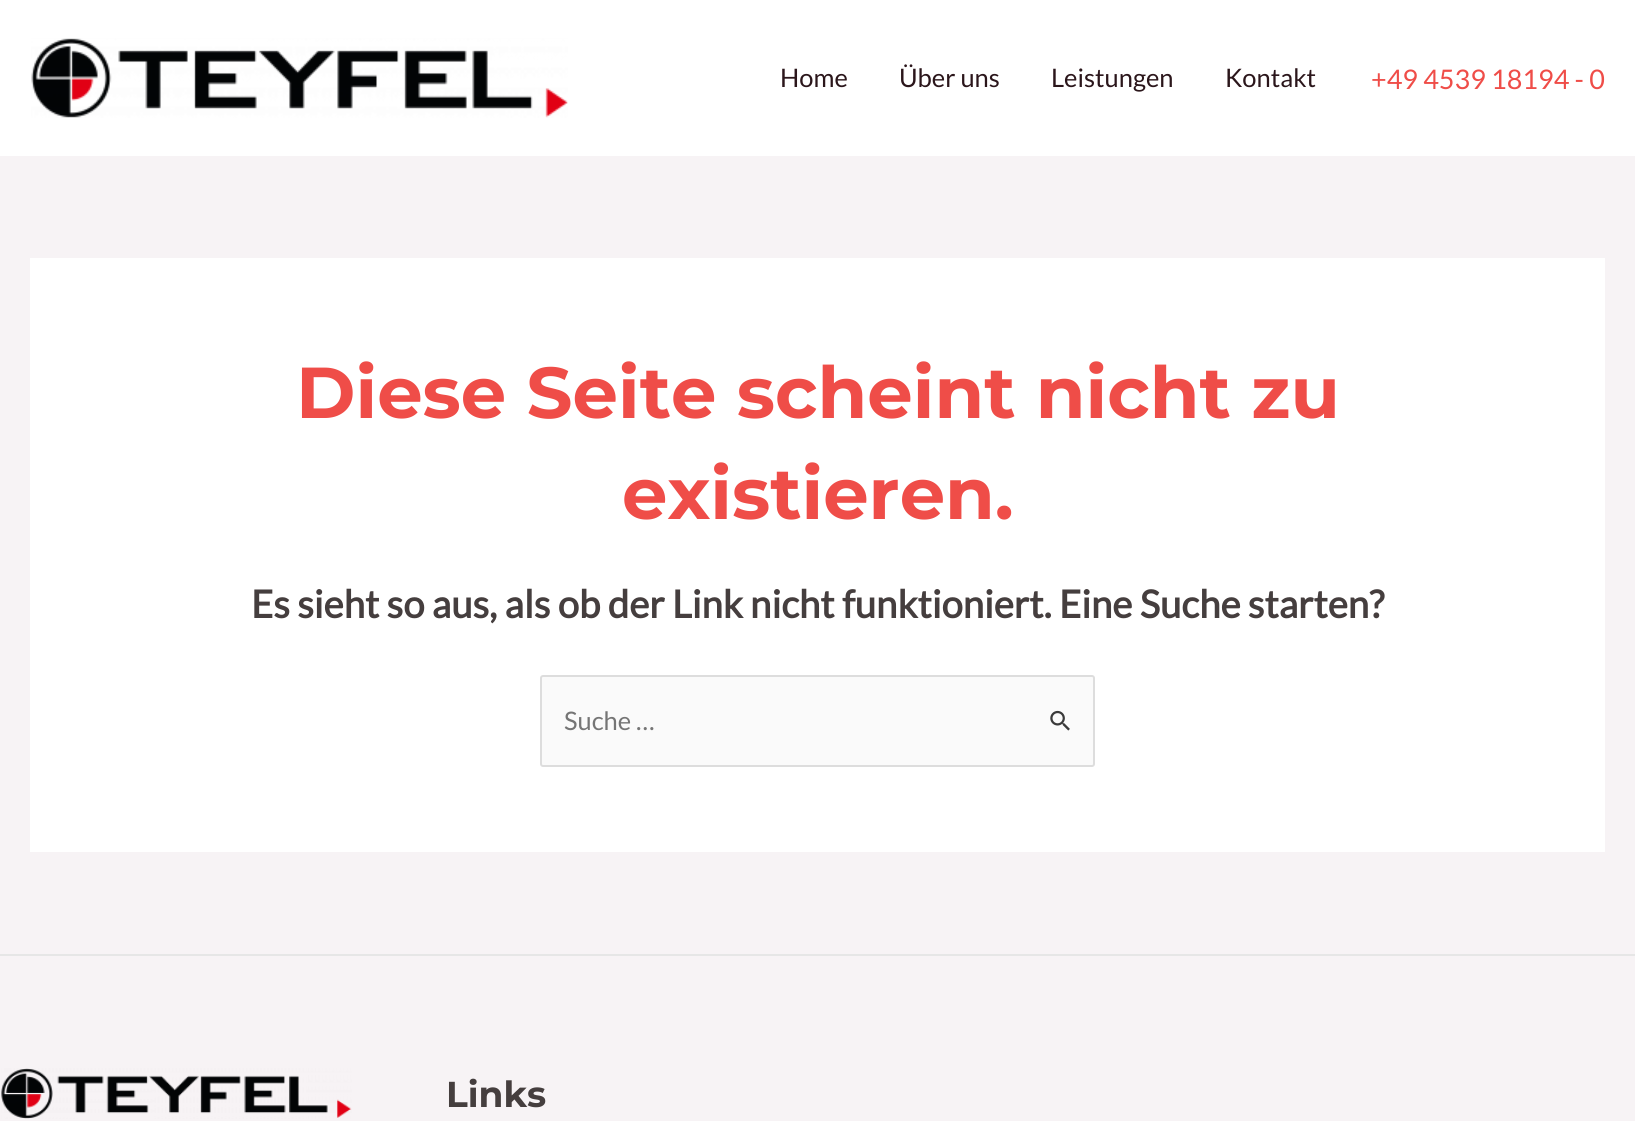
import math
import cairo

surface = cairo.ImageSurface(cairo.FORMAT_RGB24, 1635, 1121)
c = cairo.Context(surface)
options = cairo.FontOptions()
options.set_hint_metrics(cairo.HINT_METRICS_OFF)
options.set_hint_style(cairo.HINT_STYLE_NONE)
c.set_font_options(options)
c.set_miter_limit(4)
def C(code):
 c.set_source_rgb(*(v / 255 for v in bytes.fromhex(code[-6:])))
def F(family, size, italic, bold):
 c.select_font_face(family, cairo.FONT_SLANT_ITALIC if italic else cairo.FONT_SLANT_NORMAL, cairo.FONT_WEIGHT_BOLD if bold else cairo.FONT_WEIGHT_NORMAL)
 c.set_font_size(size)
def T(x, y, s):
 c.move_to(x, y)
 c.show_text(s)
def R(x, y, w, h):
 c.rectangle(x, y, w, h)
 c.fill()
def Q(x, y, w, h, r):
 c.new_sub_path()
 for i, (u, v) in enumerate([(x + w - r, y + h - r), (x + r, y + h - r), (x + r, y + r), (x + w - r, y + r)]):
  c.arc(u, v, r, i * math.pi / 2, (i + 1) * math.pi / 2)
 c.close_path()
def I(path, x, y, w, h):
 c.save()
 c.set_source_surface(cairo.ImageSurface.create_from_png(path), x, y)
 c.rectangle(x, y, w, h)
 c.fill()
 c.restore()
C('f7f3f5')
c.paint()
C('ffffff')
R(0,0,1635,156)
I('1.png',31,38,537,80)
F('Lato',25.5,0,0)
C('2b161b')
T(780,87,'Home')
T(899,87,'Über uns')
T(1051,87,'Leistungen')
T(1225,87,'Kontakt')
F('Lato',27,0,0)
C('ef4d48')
T(1371,89,'+49 4539 18194 - 0')
C('ffffff')
R(30,258,1575,594)
F('Montserrat Thin',72,0,0)
C('ef4d48')
T(296,418,'Diese Seite scheint nicht zu')
T(622,519,'existieren.')
F('Lato',38.25,0,1)
C('453e3e')
T(251,618,'Es sieht so aus, als ob der Link nicht funktioniert. Eine Suche starten?')
C('fafafa')
Q(541,676,553,90,2)
c.fill_preserve()
C('dddddd')
c.stroke()
F('Lato',25.5,0,0)
C('757575')
T(564,730,'Suche …')
I('2.png',1050,710,20,21)
C('e6e6e6')
R(0,954,1635,2)
I('3.png',1,1068,351,51)
F('Montserrat Thin',36,0,0)
C('453e3e')
T(446,1107,'Links')
surface.write_to_png('o.png')
